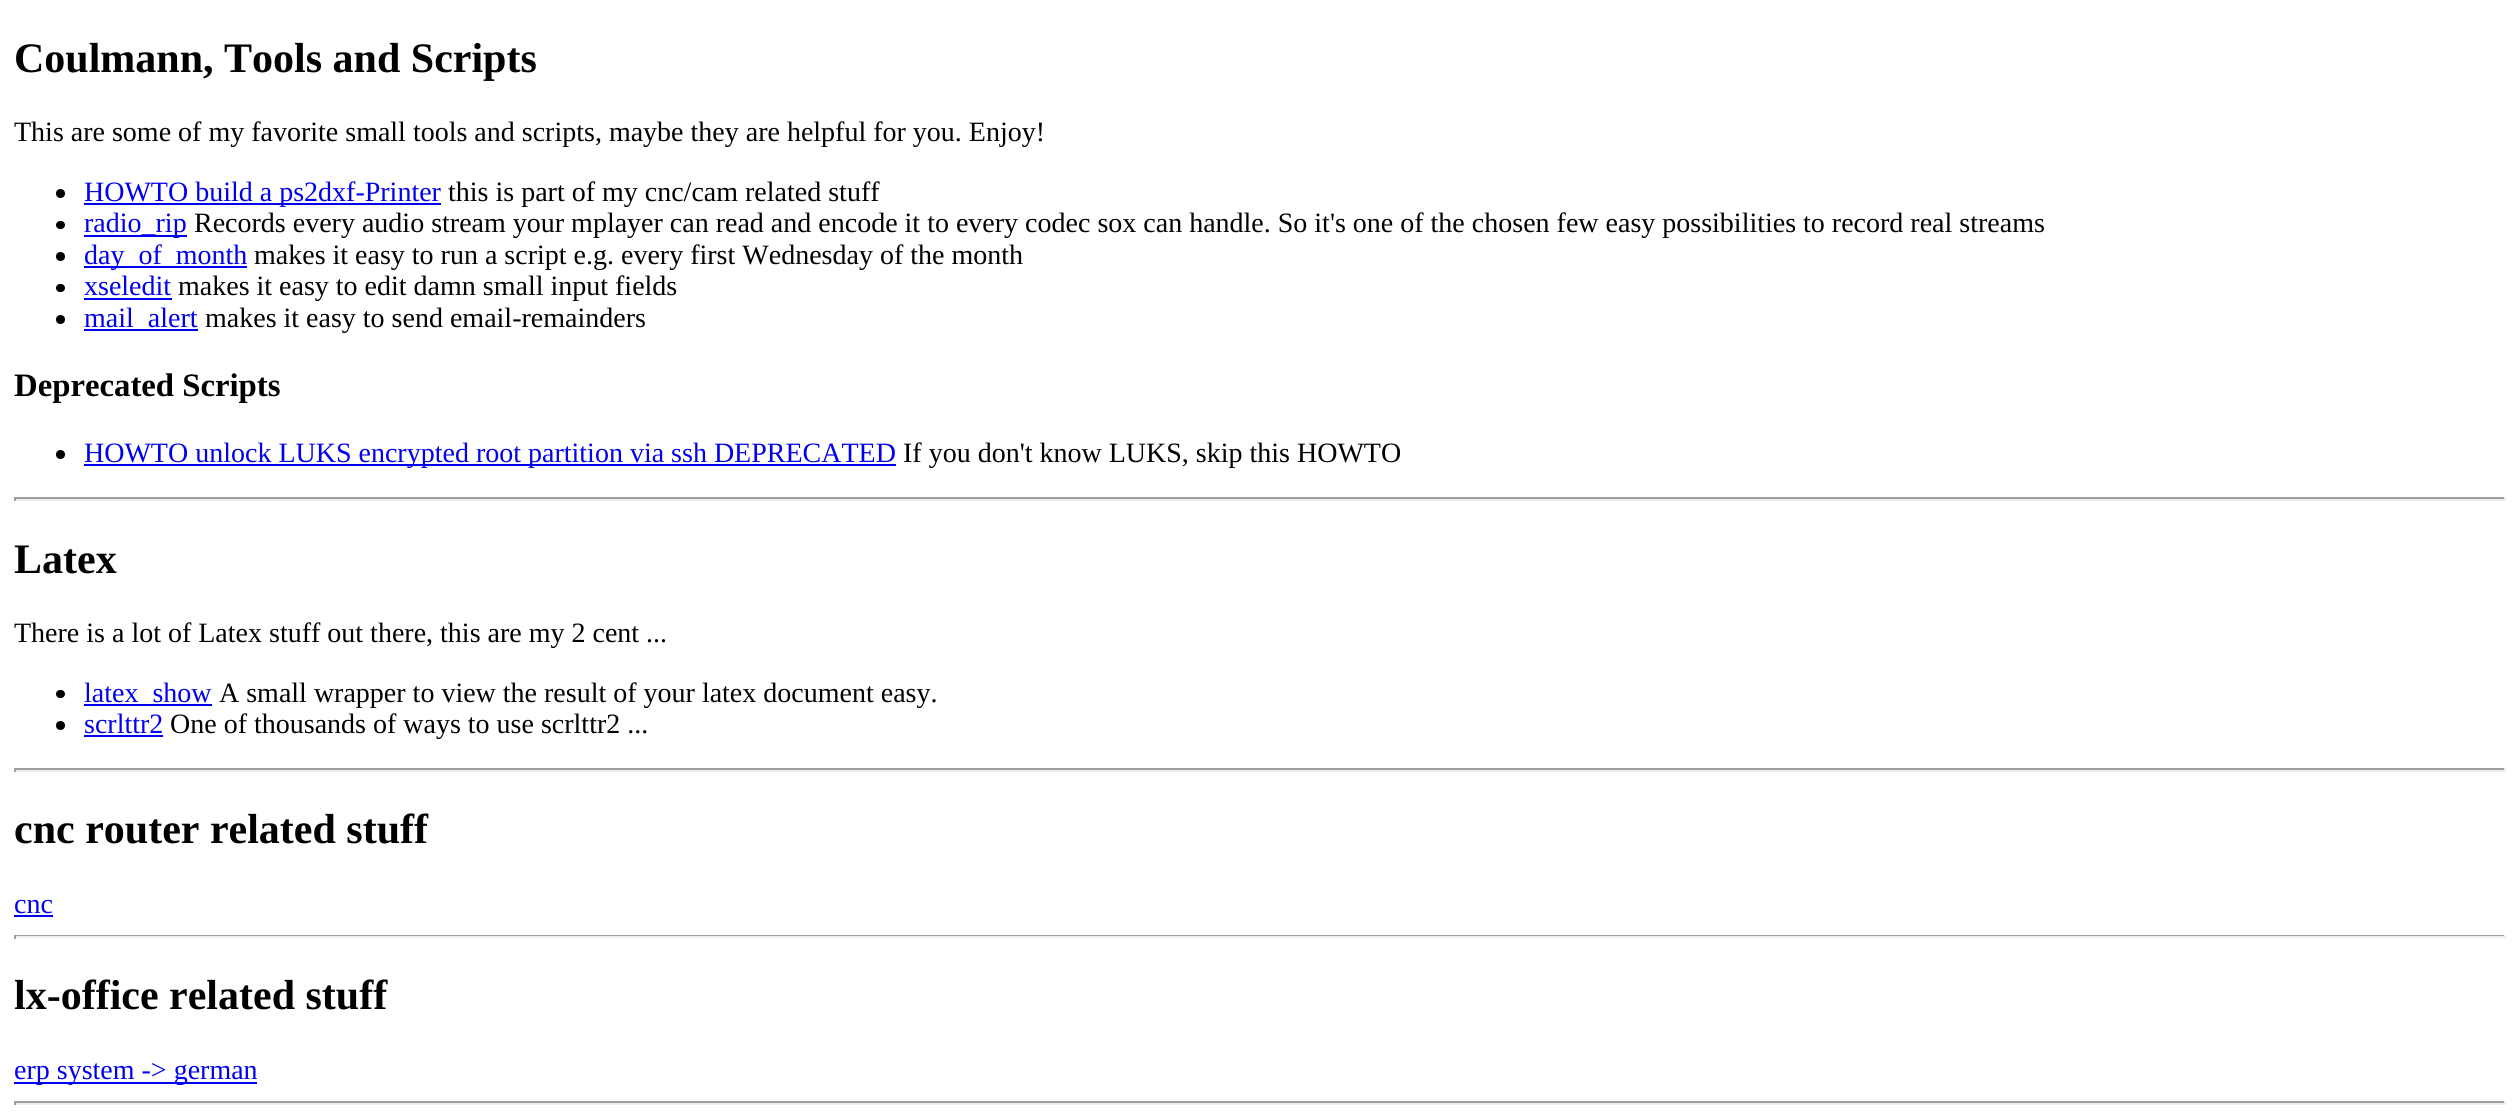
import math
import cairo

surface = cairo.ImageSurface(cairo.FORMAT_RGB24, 2520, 1116)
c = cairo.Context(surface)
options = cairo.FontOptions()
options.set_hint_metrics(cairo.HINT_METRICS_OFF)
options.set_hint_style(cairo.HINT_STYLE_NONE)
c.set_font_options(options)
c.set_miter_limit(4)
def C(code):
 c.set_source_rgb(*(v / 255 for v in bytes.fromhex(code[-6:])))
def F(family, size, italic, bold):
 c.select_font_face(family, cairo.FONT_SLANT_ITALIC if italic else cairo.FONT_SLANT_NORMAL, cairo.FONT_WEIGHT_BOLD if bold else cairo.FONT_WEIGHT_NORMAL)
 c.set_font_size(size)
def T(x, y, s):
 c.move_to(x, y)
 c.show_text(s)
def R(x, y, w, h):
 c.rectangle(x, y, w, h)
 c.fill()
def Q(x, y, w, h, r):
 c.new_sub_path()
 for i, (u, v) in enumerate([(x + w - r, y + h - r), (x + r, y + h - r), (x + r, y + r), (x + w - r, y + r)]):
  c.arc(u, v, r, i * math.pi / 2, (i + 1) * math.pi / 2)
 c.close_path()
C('ffffff')
c.paint()
F('Liberation Serif',42,0,1)
C('000000')
T(14,72,'Coulmann, Tools and Scripts')
F('Liberation Serif',28,0,0)
T(14,141,'This are some of my favorite small tools and scripts, maybe they are helpful for you. Enjoy!')
c.new_path()
c.arc(60.5,193.5,4.5,0,2 * math.pi)
c.fill()
C('0000ee')
R(84,203,357,2)
T(84,201,'HOWTO build a ps2dxf-Printer')
C('000000')
T(448,201,'this is part of my cnc/cam related stuff')
Q(56,221,9,8,4)
c.fill()
C('0000ee')
R(84,235,103,2)
T(84,232,'radio_rip')
C('000000')
T(194,232,'Records every audio stream your mplayer can read and encode it to every codec sox can handle. So it\'s one of the chosen few easy possibilities to record real streams')
c.new_path()
c.arc(60.5,256.5,4.5,0,2 * math.pi)
c.fill()
C('0000ee')
R(84,266,163,2)
T(84,264,'day_of_month')
C('000000')
T(254,264,'makes it easy to run a script e.g. every first Wednesday of the month')
Q(56,284,9,8,4)
c.fill()
C('0000ee')
T(84,295,'xseledit')
R(84,298,88,2)
C('000000')
T(178,295,'makes it easy to edit damn small input fields')
c.new_path()
c.arc(60.5,319.5,4.5,0,2 * math.pi)
c.fill()
C('0000ee')
R(84,329,114,2)
T(84,327,'mail_alert')
C('000000')
T(205,327,'makes it easy to send email-remainders')
F('Liberation Serif',32.75,0,1)
T(14,396,'Deprecated Scripts')
c.new_path()
c.arc(60.5,454.5,4.5,0,2 * math.pi)
c.fill()
C('0000ee')
R(84,464,812,2)
F('Liberation Serif',28,0,0)
T(84,462,'HOWTO unlock LUKS encrypted root partition via ssh DEPRECATED')
C('000000')
T(903,462,'If you don\'t know LUKS, skip this HOWTO')
C('9f9f9f')
R(14,497,2492,2)
C('eeeeee')
R(2504,497,2,4)
R(14,499,2492,2)
C('9f9f9f')
R(14,497,2,4)
F('Liberation Serif',42,0,1)
C('000000')
T(14,573,'Latex')
F('Liberation Serif',28,0,0)
T(14,642,'There is a lot of Latex stuff out there, this are my 2 cent ...')
Q(56,690,9,8,4)
c.fill()
C('0000ee')
R(84,704,128,2)
T(84,702,'latex_show')
C('000000')
T(219,702,'A small wrapper to view the result of your latex document easy.')
c.new_path()
c.arc(60.5,725.5,4.5,0,2 * math.pi)
c.fill()
C('0000ee')
T(84,733,'scrlttr2')
R(84,735,79,2)
C('000000')
T(170,733,'One of thousands of ways to use scrlttr2 ...')
C('9f9f9f')
R(14,768,2492,2)
C('eeeeee')
R(2504,768,2,4)
R(14,770,2492,2)
C('9f9f9f')
R(14,768,2,4)
F('Liberation Serif',42,0,1)
C('000000')
T(14,843,'cnc router related stuff')
F('Liberation Serif',28,0,0)
C('0000ee')
T(14,913,'cnc')
R(14,915,39,2)
C('9f9f9f')
R(14,935,2492,1)
C('eeeeee')
R(2504,935,2,4)
R(14,936,2492,2)
C('9f9f9f')
R(14,935,2,4)
F('Liberation Serif',42,0,1)
C('000000')
T(14,1009,'lx-office related stuff')
C('0000ee')
R(14,1082,243,2)
F('Liberation Serif',28,0,0)
T(14,1079,'erp system -> german')
C('9f9f9f')
R(14,1101,2492,2)
C('eeeeee')
R(2504,1101,2,4)
R(14,1103,2492,2)
C('9f9f9f')
R(14,1101,2,4)
surface.write_to_png('o.png')
